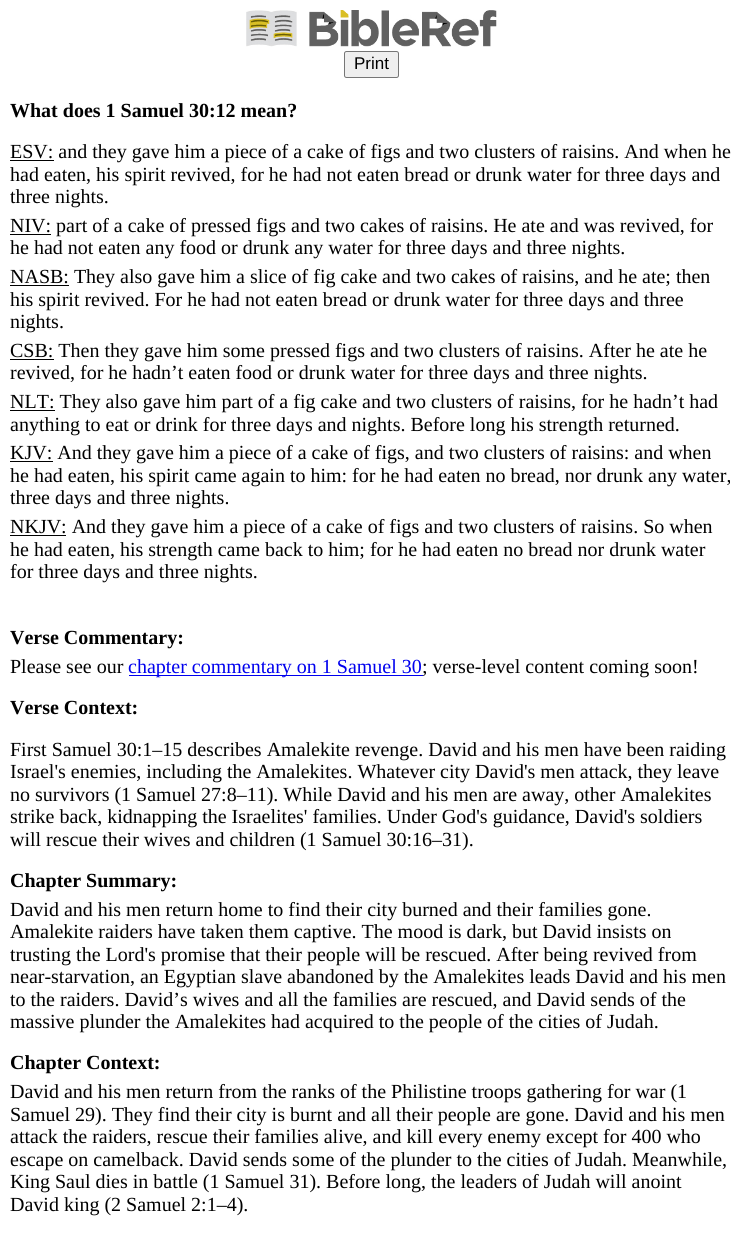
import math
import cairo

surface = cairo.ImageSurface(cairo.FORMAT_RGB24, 742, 1248)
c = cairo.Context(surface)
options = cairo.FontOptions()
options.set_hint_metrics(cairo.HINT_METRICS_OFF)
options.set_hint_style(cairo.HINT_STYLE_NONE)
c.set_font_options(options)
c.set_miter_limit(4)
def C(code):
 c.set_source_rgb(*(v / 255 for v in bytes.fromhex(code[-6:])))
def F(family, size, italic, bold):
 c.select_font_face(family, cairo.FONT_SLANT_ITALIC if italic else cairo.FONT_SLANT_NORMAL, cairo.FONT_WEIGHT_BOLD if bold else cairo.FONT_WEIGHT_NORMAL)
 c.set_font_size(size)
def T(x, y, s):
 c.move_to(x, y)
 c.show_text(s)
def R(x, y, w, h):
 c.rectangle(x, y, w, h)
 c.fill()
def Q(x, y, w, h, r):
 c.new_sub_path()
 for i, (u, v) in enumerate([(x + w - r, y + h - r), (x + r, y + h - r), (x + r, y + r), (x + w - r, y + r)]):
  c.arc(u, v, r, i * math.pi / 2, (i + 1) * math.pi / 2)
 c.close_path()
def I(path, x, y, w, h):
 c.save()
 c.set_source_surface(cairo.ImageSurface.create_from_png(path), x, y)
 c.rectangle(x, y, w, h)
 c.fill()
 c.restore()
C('ffffff')
c.paint()
I('1.png',246,10,251,37)
C('efefef')
Q(344.5,51.5,54,26,2)
c.fill_preserve()
C('767676')
c.set_line_width(1)
c.stroke()
F('Liberation Sans',17,0,0)
C('000000')
T(354,69,'Print')
F('Liberation Serif',20,0,1)
T(10,117,'What does 1 Samuel 30:12 mean?')
R(10,160,44,1)
F('Liberation Serif',20,0,0)
T(10,158,'ESV: and they gave him a piece of a cake of figs and two clusters of raisins. And when he')
T(10,181,'had eaten, his spirit revived, for he had not eaten bread or drunk water for three days and')
T(10,203,'three nights.')
R(10,234,41,1)
T(10,232,'NIV: part of a cake of pressed figs and two cakes of raisins. He ate and was revived, for')
T(10,254,'he had not eaten any food or drunk any water for three days and three nights.')
R(10,285,59,1)
T(10,283,'NASB: They also gave him a slice of fig cake and two cakes of raisins, and he ate; then')
T(10,306,'his spirit revived. For he had not eaten bread or drunk water for three days and three')
T(10,328,'nights.')
R(10,359,44,1)
T(10,357,'CSB: Then they gave him some pressed figs and two clusters of raisins. After he ate he')
T(10,379,'revived, for he hadn’t eaten food or drunk water for three days and three nights.')
R(10,410,45,1)
T(10,408,'NLT: They also gave him part of a fig cake and two clusters of raisins, for he hadn’t had')
T(10,431,'anything to eat or drink for three days and nights. Before long his strength returned.')
R(10,461,43,1)
T(10,459,'KJV: And they gave him a piece of a cake of figs, and two clusters of raisins: and when')
T(10,482,'he had eaten, his spirit came again to him: for he had eaten no bread, nor drunk any water,')
T(10,504,'three days and three nights.')
R(10,535,56,1)
T(10,533,'NKJV: And they gave him a piece of a cake of figs and two clusters of raisins. So when')
T(10,556,'he had eaten, his strength came back to him; for he had eaten no bread nor drunk water')
T(10,578,'for three days and three nights.')
F('Liberation Serif',20,0,1)
T(10,644,'Verse Commentary:')
F('Liberation Serif',20,0,0)
T(10,673,'Please see our')
C('0000ee')
R(129,675,294,1)
T(128,673,'chapter commentary on 1 Samuel 30')
C('000000')
T(422,673,'; verse-level content coming soon!')
F('Liberation Serif',20,0,1)
T(10,714,'Verse Context:')
F('Liberation Serif',20,0,0)
T(10,756,'First Samuel 30:1–15 describes Amalekite revenge. David and his men have been raiding')
T(10,778,'Israel\'s enemies, including the Amalekites. Whatever city David\'s men attack, they leave')
T(10,801,'no survivors (1 Samuel 27:8–11). While David and his men are away, other Amalekites')
T(10,823,'strike back, kidnapping the Israelites\' families. Under God\'s guidance, David\'s soldiers')
T(10,846,'will rescue their wives and children (1 Samuel 30:16–31).')
F('Liberation Serif',20,0,1)
T(10,887,'Chapter Summary:')
F('Liberation Serif',20,0,0)
T(10,916,'David and his men return home to find their city burned and their families gone.')
T(10,938,'Amalekite raiders have taken them captive. The mood is dark, but David insists on')
T(10,961,'trusting the Lord\'s promise that their people will be rescued. After being revived from')
T(10,983,'near-starvation, an Egyptian slave abandoned by the Amalekites leads David and his men')
T(10,1006,'to the raiders. David’s wives and all the families are rescued, and David sends of the')
T(10,1028,'massive plunder the Amalekites had acquired to the people of the cities of Judah.')
F('Liberation Serif',20,0,1)
T(10,1069,'Chapter Context:')
F('Liberation Serif',20,0,0)
T(10,1098,'David and his men return from the ranks of the Philistine troops gathering for war (1')
T(10,1121,'Samuel 29). They find their city is burnt and all their people are gone. David and his men')
T(10,1143,'attack the raiders, rescue their families alive, and kill every enemy except for 400 who')
T(10,1166,'escape on camelback. David sends some of the plunder to the cities of Judah. Meanwhile,')
T(10,1188,'King Saul dies in battle (1 Samuel 31). Before long, the leaders of Judah will anoint')
T(10,1211,'David king (2 Samuel 2:1–4).')
surface.write_to_png('o.png')
